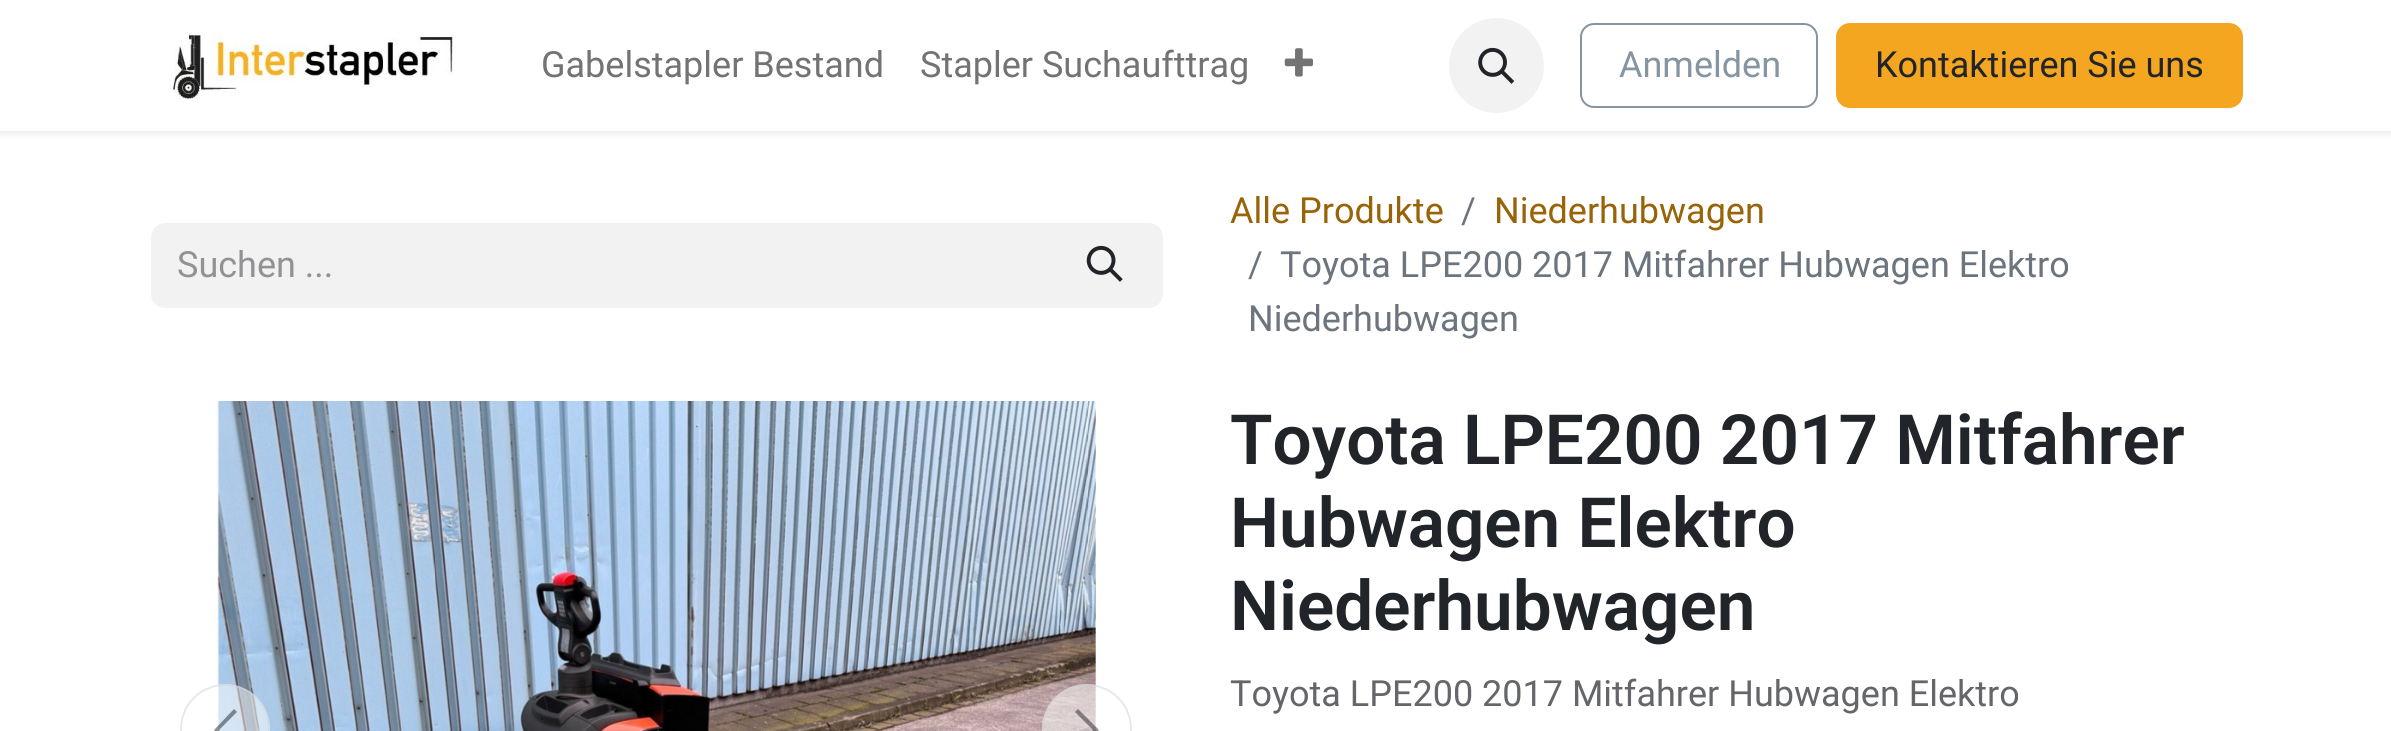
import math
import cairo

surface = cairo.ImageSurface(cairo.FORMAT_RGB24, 2391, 731)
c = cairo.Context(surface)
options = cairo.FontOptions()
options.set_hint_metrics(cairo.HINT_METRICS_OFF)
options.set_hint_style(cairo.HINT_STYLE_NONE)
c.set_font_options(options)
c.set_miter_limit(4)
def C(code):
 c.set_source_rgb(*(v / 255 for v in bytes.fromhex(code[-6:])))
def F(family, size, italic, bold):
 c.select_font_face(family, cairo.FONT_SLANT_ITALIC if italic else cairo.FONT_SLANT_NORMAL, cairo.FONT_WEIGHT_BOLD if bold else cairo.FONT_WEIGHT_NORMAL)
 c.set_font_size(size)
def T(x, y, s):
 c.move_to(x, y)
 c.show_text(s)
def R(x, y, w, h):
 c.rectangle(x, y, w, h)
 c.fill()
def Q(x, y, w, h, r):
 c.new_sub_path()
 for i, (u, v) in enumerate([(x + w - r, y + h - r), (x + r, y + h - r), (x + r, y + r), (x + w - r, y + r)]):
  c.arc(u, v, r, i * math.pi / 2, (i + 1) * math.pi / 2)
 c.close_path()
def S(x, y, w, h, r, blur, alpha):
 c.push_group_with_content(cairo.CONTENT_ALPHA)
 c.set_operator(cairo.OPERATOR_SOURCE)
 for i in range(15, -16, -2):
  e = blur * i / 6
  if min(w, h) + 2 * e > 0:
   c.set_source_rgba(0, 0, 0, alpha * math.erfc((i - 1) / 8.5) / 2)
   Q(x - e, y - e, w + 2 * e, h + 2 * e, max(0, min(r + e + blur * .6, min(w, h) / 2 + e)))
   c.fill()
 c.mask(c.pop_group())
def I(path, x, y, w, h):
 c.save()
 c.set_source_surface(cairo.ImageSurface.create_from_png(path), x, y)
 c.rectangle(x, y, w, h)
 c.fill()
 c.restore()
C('ffffff')
c.paint()
C('000000')
S(0,2,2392,131,0,3.5,.1)
C('ffffff')
R(0,0,2391,131)
I('1.png',170,32,286,67)
F('Roboto',36,0,0)
C('737373')
T(541,77,'Gabelstapler Bestand')
T(920,77,'Stapler Suchaufttrag')
I('2.png',1284,48,29,29)
C('f2f2f2')
c.arc(1496.5,65.5,47.5,0,2 * math.pi)
c.fill()
I('3.png',1478,47,37,37)
Q(1581,24,236,83,13)
C('8595a2')
c.stroke()
T(1619,77,'Anmelden')
C('f5a620')
Q(1837,24,405,83,13)
c.fill_preserve()
c.stroke()
C('212529')
T(1875,77,'Kontaktieren Sie uns')
C('f3f2f2')
c.new_path()
c.move_to(165,223)
c.line_to(1051,223)
c.line_to(1051,308)
c.line_to(165,308)
c.curve_to(157.5,308,151,301.5,151,294)
c.line_to(151,237)
c.curve_to(151,229.5,157.5,223,165,223)
c.close_path()
c.fill()
C('909294')
T(177,277,'Suchen ...')
C('f3f2f2')
c.new_path()
c.move_to(1050,224)
c.line_to(1149,224)
c.curve_to(1156,224,1162,230,1162,237)
c.line_to(1162,294)
c.curve_to(1162,301,1156,307,1149,307)
c.line_to(1050,307)
c.close_path()
c.fill_preserve()
c.stroke()
I('4.png',1086,245,37,37)
C('996307')
T(1230,223,'Alle Produkte')
C('6c757d')
T(1461,223,'/')
C('996307')
T(1494,223,'Niederhubwagen')
C('6c757d')
T(1248,277,'/')
T(1280,277,'Toyota LPE200 2017 Mitfahrer Hubwagen Elektro')
T(1248,331,'Niederhubwagen')
I('5.png',217,401,879,330)
c.set_source_rgba(1,1,1,0.5)
c.arc(225,729,45,0,2 * math.pi)
c.fill()
c.arc(225,729,44,0,2 * math.pi)
c.set_source_rgba(0.808,0.831,0.855,0.5)
c.stroke()
c.set_source_rgba(0.129,0.145,0.161,0.5)
c.new_path()
c.move_to(214,730)
c.line_to(234,709)
c.line_to(237,712)
c.line_to(219,730)
c.line_to(237,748)
c.line_to(234,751)
c.close_path()
c.fill()
c.set_source_rgba(1,1,1,0.5)
c.arc(1087,729,45,0,2 * math.pi)
c.fill()
c.arc(1087,729,44,0,2 * math.pi)
c.set_source_rgba(0.808,0.831,0.855,0.5)
c.stroke()
c.set_source_rgba(0.129,0.145,0.161,0.5)
c.new_path()
c.move_to(1099,730)
c.line_to(1078,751)
c.line_to(1075,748)
c.line_to(1093,730)
c.line_to(1075,712)
c.line_to(1078,709)
c.close_path()
c.fill()
F('Roboto SemiBold',69.25,0,0)
C('212529')
T(1230,464,'Toyota LPE200 2017 Mitfahrer')
T(1230,547,'Hubwagen Elektro')
T(1230,630,'Niederhubwagen')
F('Roboto',36,0,0)
C('646669')
T(1230,706,'Toyota LPE200 2017 Mitfahrer Hubwagen Elektro')
surface.write_to_png('o.png')
